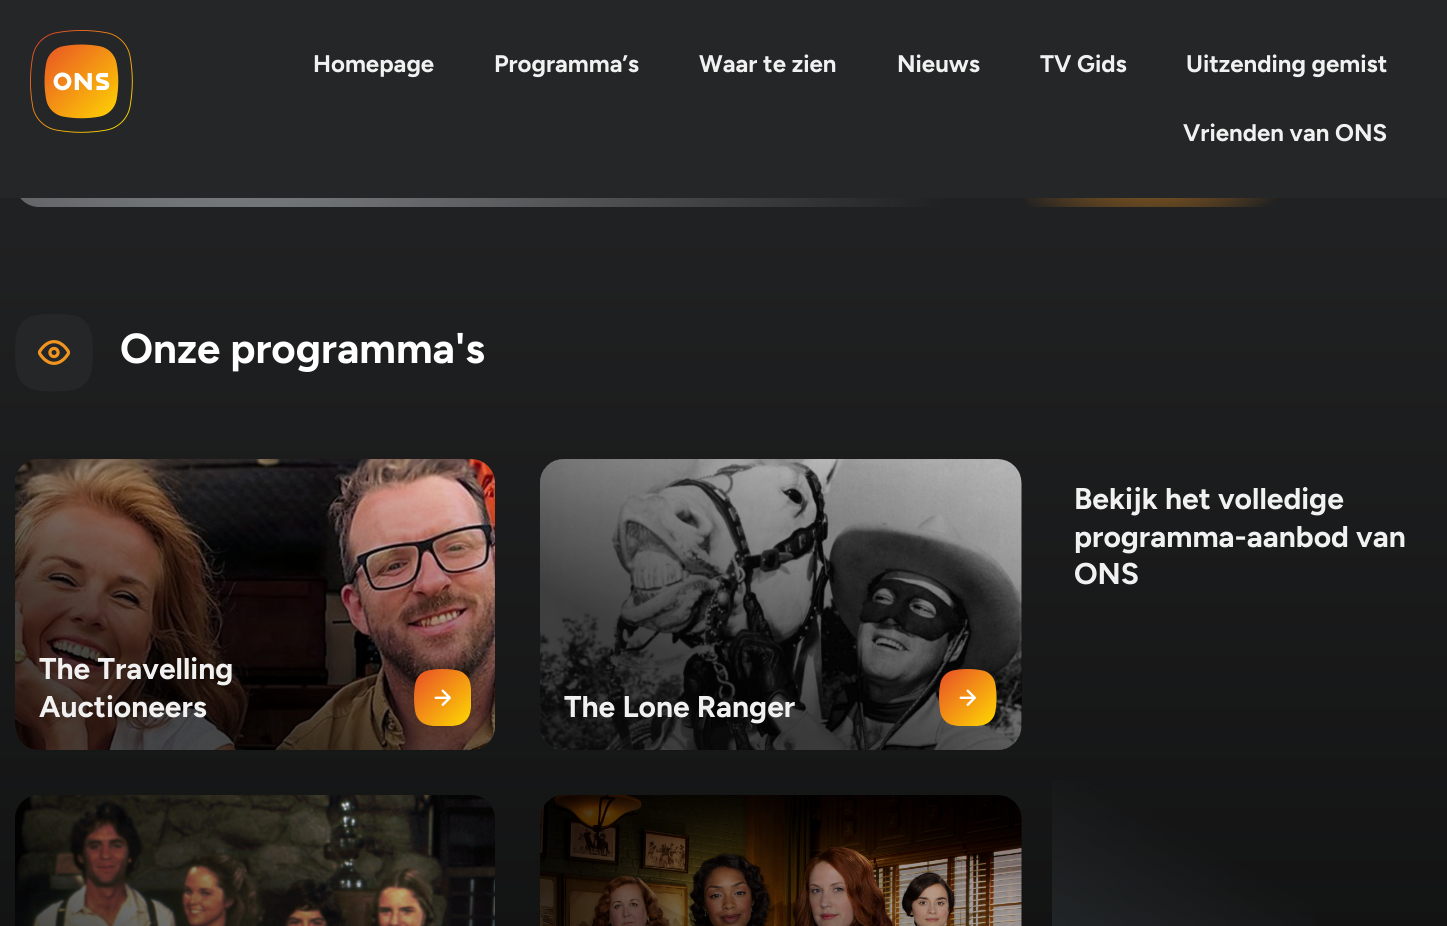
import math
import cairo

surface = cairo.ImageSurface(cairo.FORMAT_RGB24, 1447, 926)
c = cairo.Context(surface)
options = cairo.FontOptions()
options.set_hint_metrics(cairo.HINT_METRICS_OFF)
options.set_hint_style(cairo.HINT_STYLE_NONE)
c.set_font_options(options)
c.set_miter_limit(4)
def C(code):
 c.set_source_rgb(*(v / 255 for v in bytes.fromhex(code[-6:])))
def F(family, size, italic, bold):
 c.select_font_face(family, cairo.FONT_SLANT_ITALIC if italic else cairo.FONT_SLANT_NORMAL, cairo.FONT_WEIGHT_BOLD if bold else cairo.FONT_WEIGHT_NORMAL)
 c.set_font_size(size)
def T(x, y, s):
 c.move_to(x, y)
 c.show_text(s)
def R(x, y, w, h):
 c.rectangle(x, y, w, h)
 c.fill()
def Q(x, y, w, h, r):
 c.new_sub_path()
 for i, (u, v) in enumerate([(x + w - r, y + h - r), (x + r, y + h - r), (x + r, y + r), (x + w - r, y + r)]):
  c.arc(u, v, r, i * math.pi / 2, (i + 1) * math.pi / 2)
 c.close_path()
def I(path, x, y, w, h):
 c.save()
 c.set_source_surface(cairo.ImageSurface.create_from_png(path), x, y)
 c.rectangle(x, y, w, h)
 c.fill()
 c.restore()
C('ffffff')
c.paint()
gradient = cairo.LinearGradient(724,-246,724,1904)
gradient.add_color_stop_rgba(.1,0.145,0.149,0.153,1)
gradient.add_color_stop_rgba(1,0,0,0,1)
c.set_source(gradient)
R(0,198,1447,728)
gradient = cairo.RadialGradient(228,87,0,228,87,1211)
gradient.add_color_stop_rgba(0,0.514,0.529,0.537,1)
gradient.add_color_stop_rgba(.6,0.514,0.529,0.537,0)
c.set_source(gradient)
Q(15,-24,1418,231,24)
c.fill()
C('252627')
R(0,0,1447,198)
I('1.png',30,30,103,103)
F('Figtree',24,0,1)
C('f1f1f1')
T(313,72,'Homepage')
T(494,72,'Programma’s')
T(699,72,'Waar te zien')
T(897,72,'Nieuws')
T(1040,72,'TV Gids')
T(1186,72,'Uitzending gemist')
T(1183,141,'Vrienden van ONS')
gradient = cairo.RadialGradient(1149,87,0,1149,87,1140)
gradient.add_color_stop_rgba(0,0.949,0.584,0.125,1)
gradient.add_color_stop_rgba(.15,0.949,0.584,0.125,0)
c.set_source(gradient)
R(1026,198,250,9)
I('2.png',15,314,78,78)
F('Figtree',42,0,1)
C('ffffff')
T(120,363,'Onze programma\'s')
gradient = cairo.LinearGradient(1420,452,1064,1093)
gradient.add_color_stop_rgba(.61,0.188,0.216,0.227,0)
gradient.add_color_stop_rgba(1,0.188,0.216,0.227,1)
c.set_source(gradient)
R(1052,780,264,146)
F('Figtree',30,0,1)
C('f1f1f1')
T(1074,509,'Bekijk het volledige')
T(1074,547,'programma-aanbod van')
T(1074,584,'ONS')
I('3.png',15,459,480,291)
gradient = cairo.LinearGradient(142,817,368,392)
gradient.add_color_stop_rgba(.3,0,0,0,.72)
gradient.add_color_stop_rgba(1,0,0,0,0)
c.set_source(gradient)
Q(15,459,480,291,24)
c.fill()
C('f1f1f1')
T(39,679,'The Travelling')
T(39,717,'Auctioneers')
I('4.png',414,669,57,57)
I('5.png',540,459,482,291)
gradient = cairo.LinearGradient(667,818,894,391)
gradient.add_color_stop_rgba(.3,0,0,0,.72)
gradient.add_color_stop_rgba(1,0,0,0,0)
c.set_source(gradient)
Q(540,459,482,291,24)
c.fill()
C('f1f1f1')
T(564,717,'The Lone Ranger')
I('6.png',939,669,58,57)
I('7.png',15,795,480,131)
gradient = cairo.LinearGradient(142,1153,368,728)
gradient.add_color_stop_rgba(.3,0,0,0,.72)
gradient.add_color_stop_rgba(1,0,0,0,0)
c.set_source(gradient)
Q(15,795,480,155,24)
c.fill()
I('8.png',540,795,482,131)
gradient = cairo.LinearGradient(667,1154,894,727)
gradient.add_color_stop_rgba(.3,0,0,0,.72)
gradient.add_color_stop_rgba(1,0,0,0,0)
c.set_source(gradient)
Q(540,795,482,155,24)
c.fill()
surface.write_to_png('o.png')
